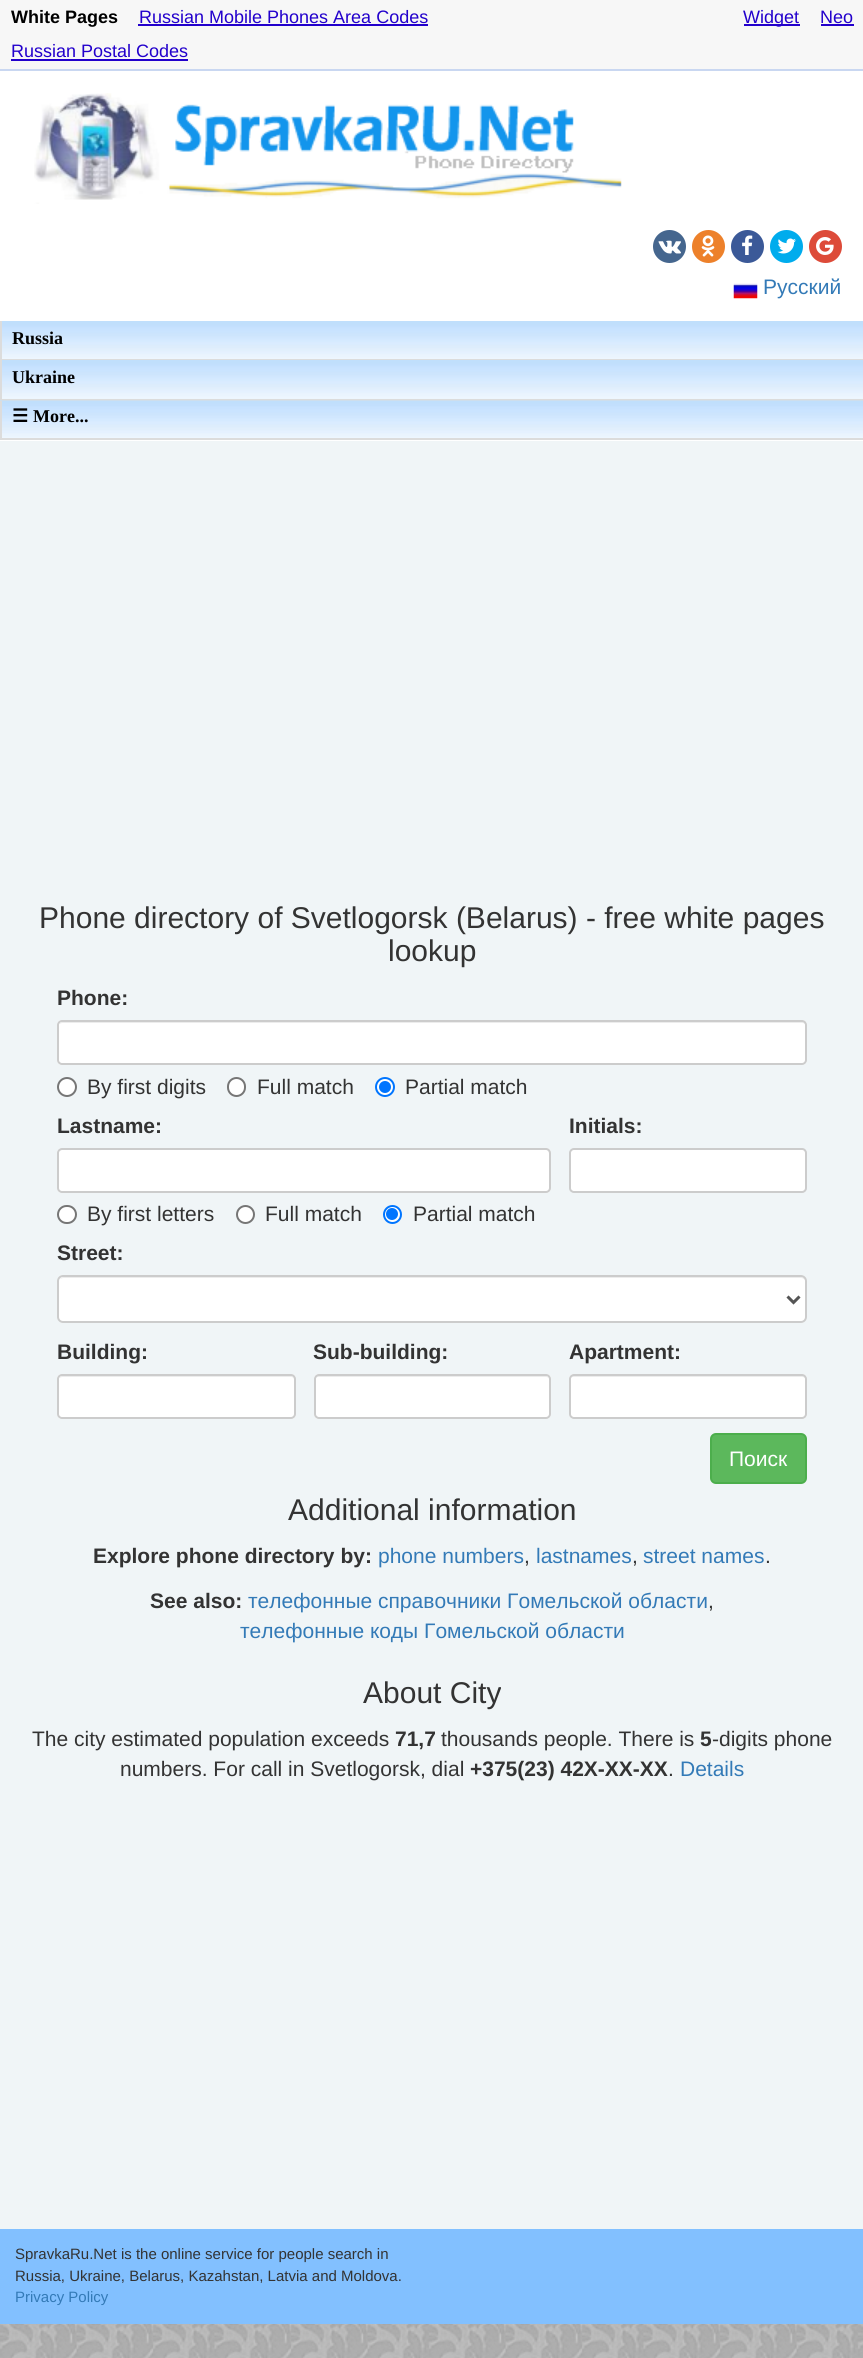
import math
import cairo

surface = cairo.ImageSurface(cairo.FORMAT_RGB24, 863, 2358)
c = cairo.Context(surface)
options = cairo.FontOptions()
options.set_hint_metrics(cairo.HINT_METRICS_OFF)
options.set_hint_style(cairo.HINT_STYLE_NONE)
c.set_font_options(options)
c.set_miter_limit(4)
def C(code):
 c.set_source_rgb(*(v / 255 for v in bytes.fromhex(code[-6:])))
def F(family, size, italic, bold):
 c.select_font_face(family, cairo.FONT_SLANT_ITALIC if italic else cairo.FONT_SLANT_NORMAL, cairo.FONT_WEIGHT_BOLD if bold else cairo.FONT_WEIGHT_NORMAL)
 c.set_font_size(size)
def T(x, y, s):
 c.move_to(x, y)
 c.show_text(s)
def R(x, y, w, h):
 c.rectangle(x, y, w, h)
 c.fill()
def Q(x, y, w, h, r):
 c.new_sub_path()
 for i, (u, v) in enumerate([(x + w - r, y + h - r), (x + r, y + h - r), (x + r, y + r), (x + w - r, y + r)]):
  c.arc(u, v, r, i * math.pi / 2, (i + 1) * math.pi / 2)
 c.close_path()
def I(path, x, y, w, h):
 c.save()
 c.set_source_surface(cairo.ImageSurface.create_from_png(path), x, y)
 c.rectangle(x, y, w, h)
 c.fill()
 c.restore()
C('ffffff')
c.paint()
I('1.png',0,2324,863,34)
C('f7f7f7')
R(0,0,863,69)
C('c9d7f1')
R(0,69,863,2)
F('Liberation Sans',18,0,1)
C('000000')
T(11,23,'White Pages')
F('Liberation Sans',18,0,0)
C('2200cc')
T(139,23,'Russian Mobile Phones Area Codes')
R(138,24,290,2)
T(11,57,'Russian Postal Codes')
R(11,59,177,2)
R(744,24,56,2)
T(743,23,'Widget')
T(820,23,'Neo')
R(821,24,33,2)
I('2.png',34,93,588,111)
C('45668e')
c.arc(669.5,246.5,16.5,0,2 * math.pi)
c.fill()
I('3.png',658,240,23,14)
C('ed812b')
c.arc(708.5,246.5,16.5,0,2 * math.pi)
c.fill()
I('4.png',701,235,14,22)
C('3b5998')
c.arc(747.5,246.5,16.5,0,2 * math.pi)
c.fill()
I('5.png',742,235,11,20)
C('00aced')
c.arc(786.5,246.5,16.5,0,2 * math.pi)
c.fill()
I('6.png',777,238,19,16)
C('dd4b39')
c.arc(825.5,246.5,16.5,0,2 * math.pi)
c.fill()
I('7.png',816,237,18,18)
I('8.png',733,283,25,16)
F('Liberation Sans',21,0,0)
C('337ab7')
T(763,294,'Русский')
I('9.png',2,321,861,38)
C('dcdcdc')
R(0,359,863,1)
R(0,321,2,39)
F('Liberation Serif',18,0,1)
C('000000')
T(12,344,'Russia')
I('10.png',2,360,861,39)
C('dcdcdc')
R(0,399,863,2)
R(0,360,2,41)
C('000000')
T(12,383,'Ukraine')
I('11.png',0,400,863,38)
C('dcdcdc')
R(0,438,863,2)
R(0,401,2,39)
F('DejaVu Sans',18,0,1)
C('000000')
T(12,422,'☰')
F('Liberation Serif',18,0,1)
T(33,422,'More...')
C('f0f5f7')
R(0,441,863,1788)
F('Liberation Sans',30,0,0)
C('333333')
T(39,928,'Phone directory of Svetlogorsk (Belarus) - free white pages')
T(388,961,'lookup')
F('Liberation Sans',21,0,1)
T(57,1005,'Phone:')
C('ffffff')
Q(57,1020,750,45,5)
c.fill()
C('ececec')
c.new_path()
c.move_to(62,1023)
c.line_to(802,1023)
c.curve_to(804,1023,806,1024,806,1026)
c.line_to(806,1025)
c.curve_to(806,1023,805,1022,803,1022)
c.line_to(62,1022)
c.curve_to(61,1022,60,1023,59,1024)
c.close_path()
c.fill()
Q(58,1021,748,43,4)
C('cccccc')
c.stroke()
C('ffffff')
c.arc(67,1087,9,0,2 * math.pi)
c.fill_preserve()
C('767676')
c.stroke()
F('Liberation Sans',21,0,0)
C('333333')
T(87,1094,'By first digits')
C('ffffff')
Q(228,1078,17,18,8.5)
c.fill_preserve()
C('767676')
c.stroke()
C('333333')
T(257,1094,'Full match')
C('ffffff')
c.new_path()
c.arc(385,1087,9,0,2 * math.pi)
c.fill_preserve()
C('0075ff')
c.stroke()
c.arc(385,1087,6,0,2 * math.pi)
c.fill()
C('333333')
T(405,1094,'Partial match')
F('Liberation Sans',21,0,1)
T(57,1133,'Lastname:')
C('ffffff')
Q(57,1148,494,45,5)
c.fill()
C('ececec')
c.new_path()
c.move_to(62,1150)
c.line_to(546,1150)
c.curve_to(548,1150,549,1152,549,1154)
c.line_to(549,1152)
c.curve_to(549,1150,548,1149,546,1149)
c.line_to(62,1149)
c.curve_to(61,1149,59,1150,59,1151)
c.close_path()
c.fill()
Q(58,1149,492,43,4)
C('cccccc')
c.stroke()
C('333333')
T(569,1133,'Initials:')
C('ffffff')
Q(570,1149,236,43,4)
c.fill_preserve()
C('cccccc')
c.stroke()
C('ffffff')
Q(58,1206,18,17,8.5)
c.fill_preserve()
C('767676')
c.stroke()
F('Liberation Sans',21,0,0)
C('333333')
T(87,1221,'By first letters')
C('ffffff')
c.new_path()
c.arc(245.5,1214.5,8.5,0,2 * math.pi)
c.fill_preserve()
C('767676')
c.stroke()
C('333333')
T(265,1221,'Full match')
C('ffffff')
c.new_path()
c.arc(392.5,1214.5,8.5,0,2 * math.pi)
c.fill_preserve()
C('0075ff')
c.stroke()
c.arc(392,1214,6,0,2 * math.pi)
c.fill()
C('333333')
T(413,1221,'Partial match')
F('Liberation Sans',21,0,1)
T(57,1260,'Street:')
C('ffffff')
Q(57,1275,750,48,6)
c.fill()
C('ececec')
c.new_path()
c.move_to(63,1278)
c.line_to(801,1278)
c.curve_to(803,1278,806,1280,806,1282)
c.curve_to(806,1279,804,1277,801,1277)
c.line_to(64,1277)
c.curve_to(62,1277,61,1278,60,1279)
c.close_path()
c.fill()
Q(58,1276,748,46,5)
C('cccccc')
c.stroke()
c.new_path()
c.move_to(787.5,1296.5)
c.line_to(793.5,1302.5)
c.line_to(799.5,1296.5)
C('555555')
c.set_line_width(3)
c.stroke()
C('333333')
T(57,1359,'Building:')
C('ffffff')
Q(57,1374,239,45,5)
c.fill()
C('ececec')
c.new_path()
c.move_to(62,1377)
c.line_to(291,1377)
c.curve_to(293,1377,294,1378,294,1380)
c.line_to(294,1379)
c.curve_to(294,1377,293,1376,291,1376)
c.line_to(62,1376)
c.curve_to(61,1376,60,1377,59,1378)
c.close_path()
c.fill()
Q(58,1375,237,43,4)
C('cccccc')
c.set_line_width(2)
c.stroke()
C('333333')
T(313,1359,'Sub-building:')
C('ffffff')
Q(314,1374,237,45,5)
c.fill()
C('ececec')
c.new_path()
c.move_to(318,1377)
c.line_to(546,1377)
c.curve_to(548,1377,549,1378,549,1380)
c.curve_to(549,1378,548,1376,546,1376)
c.line_to(318,1376)
c.curve_to(316,1376,315,1378,315,1380)
c.curve_to(315,1378,316,1377,318,1377)
c.close_path()
c.fill()
Q(315,1375,235,43,4)
C('cccccc')
c.stroke()
C('333333')
T(569,1359,'Apartment:')
C('ffffff')
Q(569,1374,238,45,5)
c.fill()
C('ececec')
c.new_path()
c.move_to(573,1377)
c.line_to(802,1377)
c.curve_to(804,1377,806,1378,806,1380)
c.curve_to(806,1378,805,1376,803,1376)
c.line_to(573,1376)
c.curve_to(571,1376,570,1378,570,1380)
c.curve_to(570,1378,571,1377,573,1377)
c.close_path()
c.fill()
Q(570,1375,236,43,4)
C('cccccc')
c.stroke()
C('5cb85c')
Q(711,1434,95,49,5)
c.fill_preserve()
C('4cae4c')
c.stroke()
F('Liberation Sans',21,0,0)
C('ffffff')
T(729,1466,'Поиск')
F('Liberation Sans',30,0,0)
C('333333')
T(288,1520,'Additional information')
F('Liberation Sans',21,0,1)
T(93,1563,'Explore phone directory by:')
F('Liberation Sans',21,0,0)
C('337ab7')
T(378,1563,'phone numbers')
C('333333')
T(524,1563,',')
C('337ab7')
T(536,1563,'lastnames')
C('333333')
T(632,1563,',')
C('337ab7')
T(643,1563,'street names')
C('333333')
T(765,1563,'.')
F('Liberation Sans',21,0,1)
T(150,1608,'See also:')
F('Liberation Sans',21,0,0)
C('337ab7')
T(248,1608,'телефонные справочники Гомельской области')
C('333333')
T(708,1608,',')
C('337ab7')
T(240,1638,'телефонные коды Гомельской области')
F('Liberation Sans',30,0,0)
C('333333')
T(363,1703,'About City')
F('Liberation Sans',21,0,0)
T(32,1746,'The city estimated population exceeds')
F('Liberation Sans',21,0,1)
T(395,1746,'71,7')
F('Liberation Sans',21,0,0)
T(441,1746,'thousands people. There is')
F('Liberation Sans',21,0,1)
T(700,1746,'5')
F('Liberation Sans',21,0,0)
T(712,1746,'-digits phone')
T(120,1776,'numbers. For call in Svetlogorsk, dial')
F('Liberation Sans',21,0,1)
T(470,1776,'+375(23) 42X-XX-XX')
F('Liberation Sans',21,0,0)
T(668,1776,'.')
C('337ab7')
T(680,1776,'Details')
C('82c0ff')
R(0,2229,863,95)
F('Liberation Sans',15,0,0)
C('333333')
T(15,2259,'SpravkaRu.Net is the online service for people search in')
T(15,2281,'Russia, Ukraine, Belarus, Kazahstan, Latvia and Moldova.')
C('337ab7')
T(15,2302,'Privacy Policy')
surface.write_to_png('o.png')
